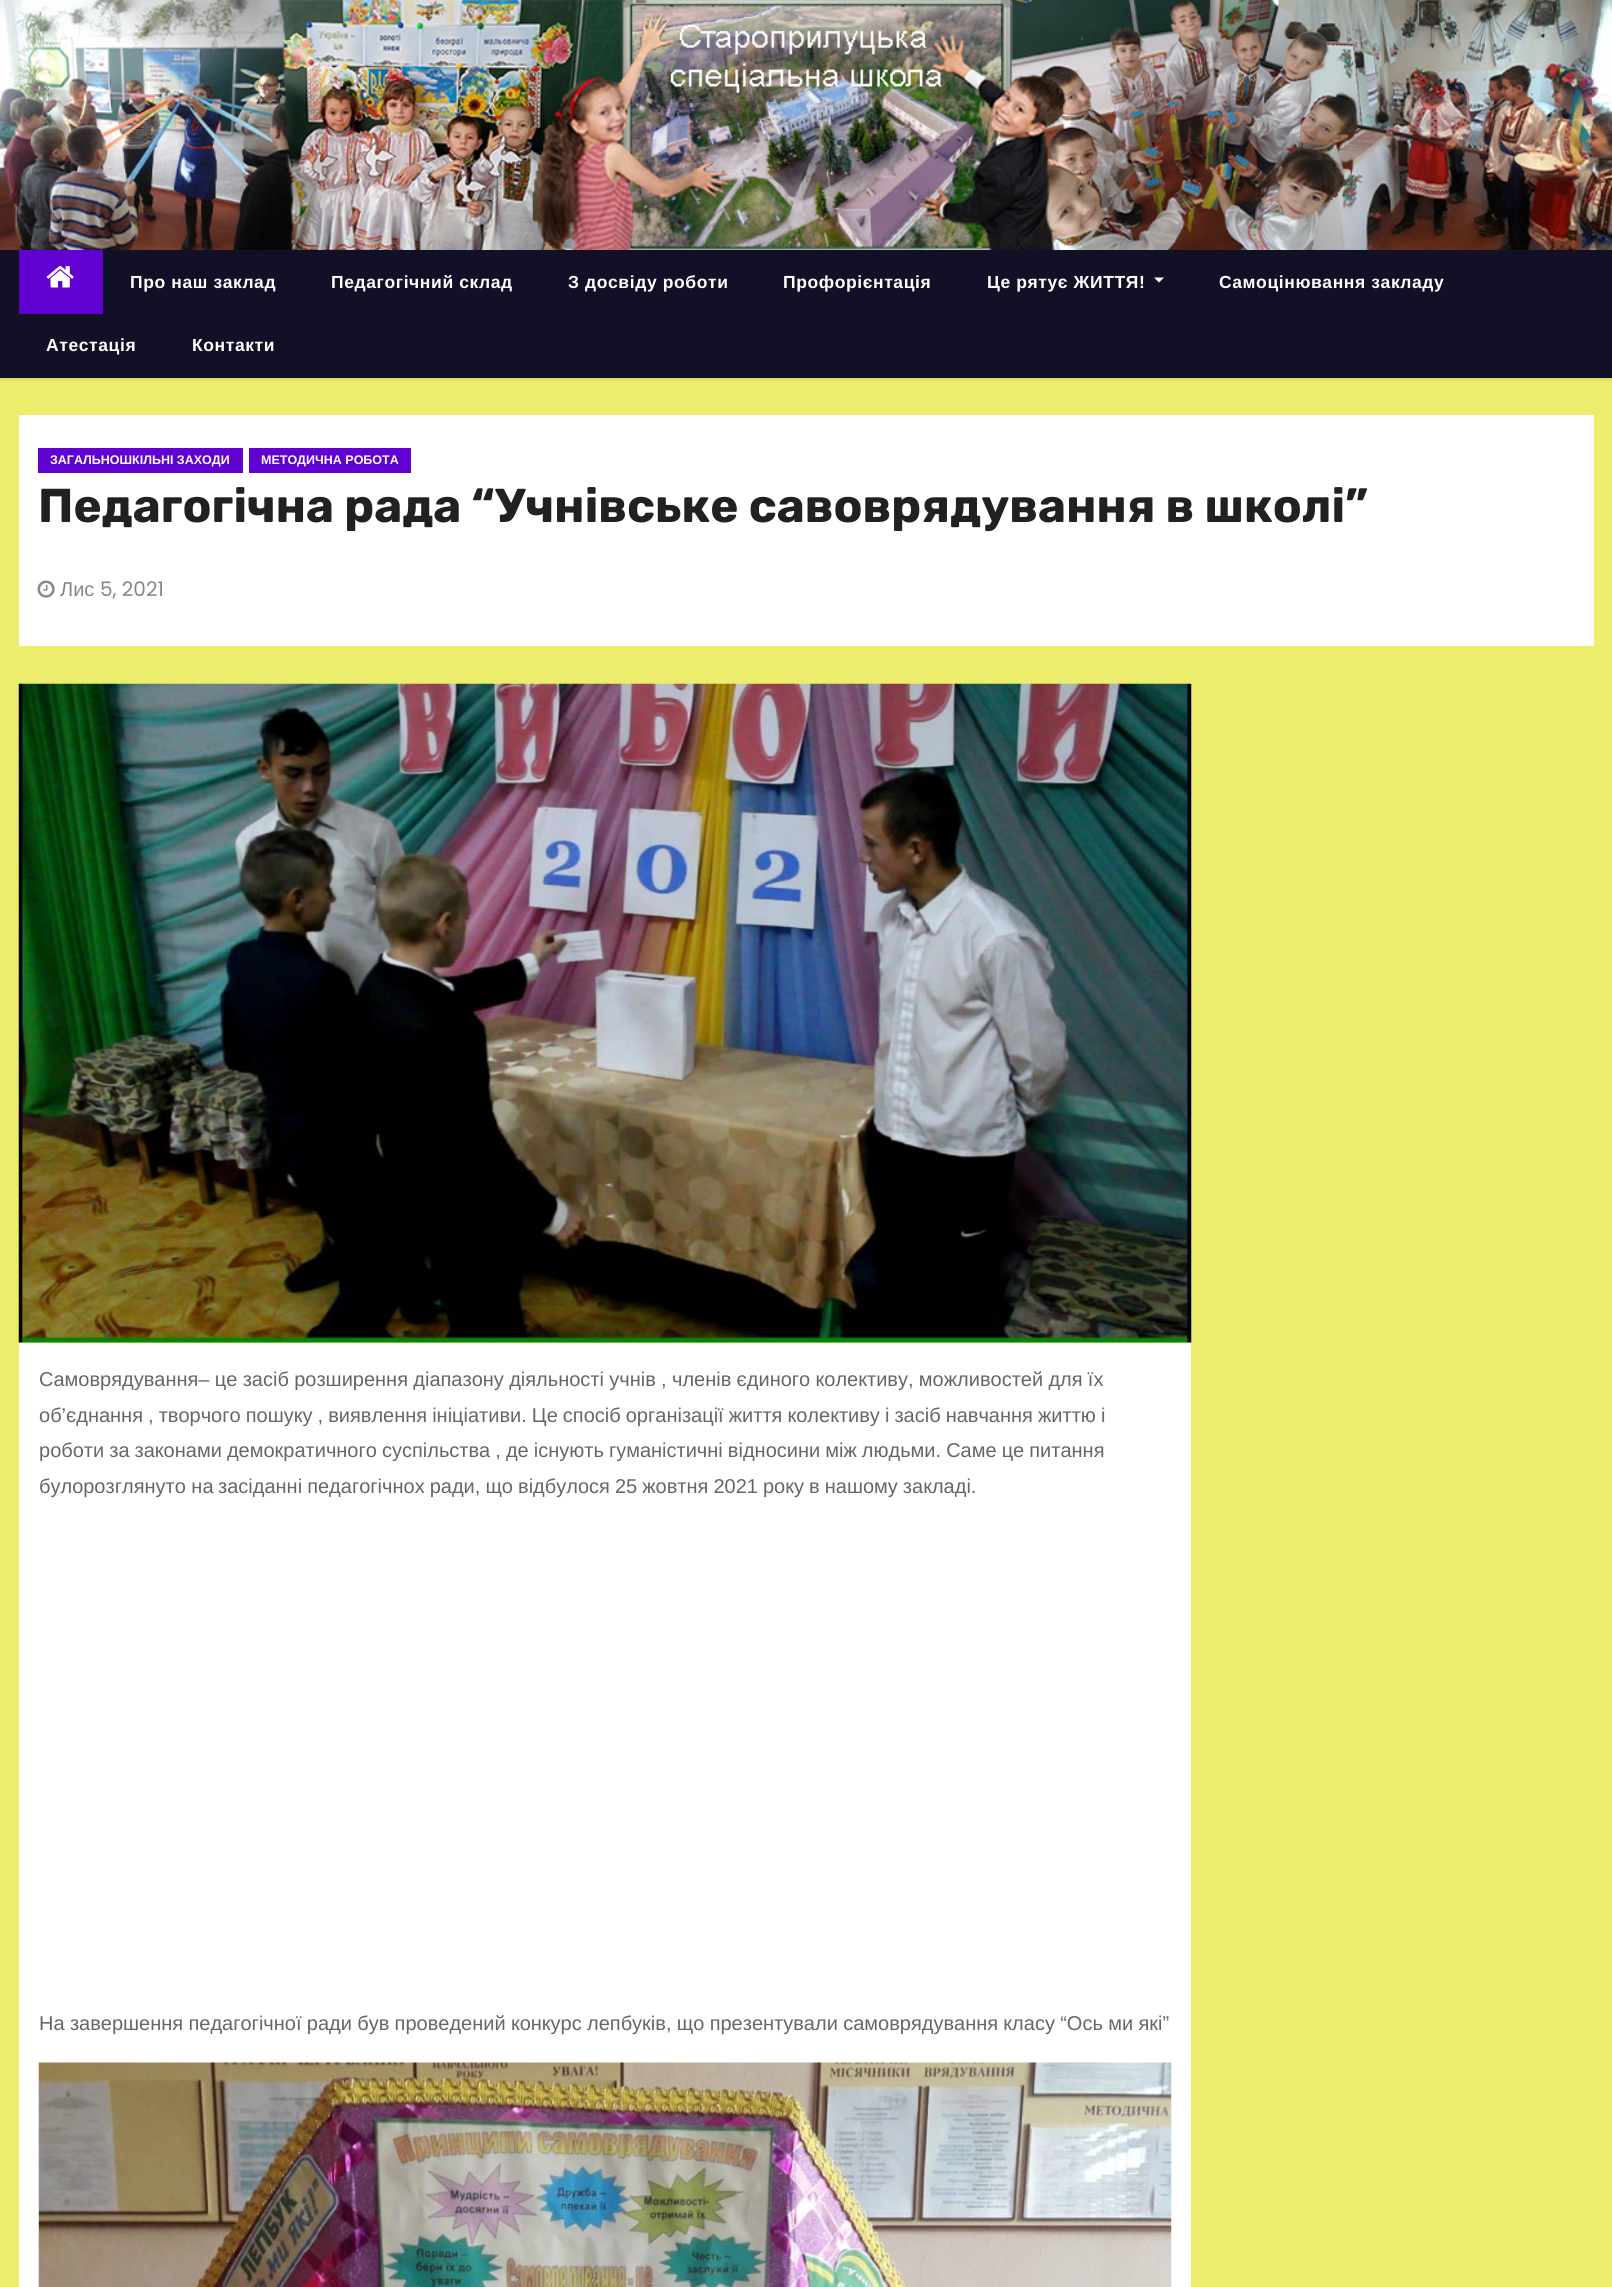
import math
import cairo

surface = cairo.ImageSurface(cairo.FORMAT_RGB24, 1612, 2287)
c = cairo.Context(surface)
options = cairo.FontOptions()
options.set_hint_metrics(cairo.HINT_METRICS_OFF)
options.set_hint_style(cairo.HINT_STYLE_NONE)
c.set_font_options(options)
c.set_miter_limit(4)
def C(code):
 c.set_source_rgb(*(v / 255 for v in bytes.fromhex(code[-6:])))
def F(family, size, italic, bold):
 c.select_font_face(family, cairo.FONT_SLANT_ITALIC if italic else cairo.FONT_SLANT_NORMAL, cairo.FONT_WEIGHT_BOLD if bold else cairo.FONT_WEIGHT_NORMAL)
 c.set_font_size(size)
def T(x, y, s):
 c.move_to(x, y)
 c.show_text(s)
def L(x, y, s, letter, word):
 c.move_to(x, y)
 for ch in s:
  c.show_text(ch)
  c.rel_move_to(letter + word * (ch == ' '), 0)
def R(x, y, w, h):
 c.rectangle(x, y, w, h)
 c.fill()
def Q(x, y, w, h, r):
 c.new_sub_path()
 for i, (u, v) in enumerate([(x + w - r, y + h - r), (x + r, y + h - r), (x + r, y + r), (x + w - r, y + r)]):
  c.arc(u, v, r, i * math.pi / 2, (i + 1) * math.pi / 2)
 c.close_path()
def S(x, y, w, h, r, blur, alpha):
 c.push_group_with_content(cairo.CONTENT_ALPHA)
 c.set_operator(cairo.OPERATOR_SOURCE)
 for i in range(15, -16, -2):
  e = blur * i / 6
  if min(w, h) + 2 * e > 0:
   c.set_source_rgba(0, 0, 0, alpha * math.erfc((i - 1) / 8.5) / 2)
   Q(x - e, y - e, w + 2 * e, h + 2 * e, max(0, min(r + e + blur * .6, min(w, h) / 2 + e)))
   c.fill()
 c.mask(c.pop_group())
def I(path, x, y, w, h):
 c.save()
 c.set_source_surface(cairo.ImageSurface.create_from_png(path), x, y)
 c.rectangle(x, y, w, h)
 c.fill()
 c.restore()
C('eded6d')
c.paint()
I('1.png',0,0,1612,250)
C('000000')
S(0,253,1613,127,0,1,.08)
C('121026')
R(0,250,1612,128)
C('6001d2')
R(19,250,84,64)
I('2.png',46,266,28,22)
F('Liberation Sans',17.5,0,1)
C('ffffff')
L(130,288,'Про наш заклад',.6,0)
L(331,288,'Педагогічний склад',.6,0)
L(568,288,'З досвіду роботи',.6,0)
L(783,288,'Профорієнтація',.6,0)
L(987,288,'Це рятує ЖИТТЯ!',.6,0)
c.new_path()
c.move_to(1154,277.5)
c.line_to(1164,277.5)
c.line_to(1159,282.5)
c.close_path()
c.fill()
L(1219,288,'Самоцінювання закладу',.6,0)
L(46,351,'Атестація',.6,0)
L(192,351,'Контакти',.6,0)
R(19,415,1575,231)
C('6001d2')
R(38,448,205,25)
F('Liberation Sans',12.5,0,1)
C('ffffff')
T(50,464,'ЗАГАЛЬНОШКІЛЬНІ ЗАХОДИ')
C('6001d2')
R(249,448,162,25)
C('ffffff')
T(261,464,'МЕТОДИЧНА РОБОТА')
F('Rubik',47.5,0,1)
C('212121')
T(38,522,'Педагогічна рада “Учнівське савоврядування в школі”')
I('3.png',37,580,18,18)
F('Liberation Sans',20,0,0)
C('868686')
T(60,596,'Лис')
F('Poppins',20,0,0)
T(100,596,'5, 2021')
I('4.png',18,683,1174,660)
C('ffffff')
R(19,1343,1172,944)
F('Liberation Sans',20,0,0)
C('666666')
L(39,1386,'Самоврядування– це засіб розширення діапазону діяльності учнів , членів єдиного колективу, можливостей для їх',0,-.25)
L(39,1422,'об’єднання , творчого пошуку , виявлення ініціативи. Це спосіб організації життя колективу і засіб навчання життю і',0,-.5)
L(39,1457,'роботи за законами демократичного суспільства , де існують гуманістичні відносини між людьми. Саме це питання',0,-.5)
T(39,1493,'булорозглянуто на')
L(218,1493,'засіданні педагогічнох ради, що відбулося 25 жовтня 2021 року в нашому закладі.',0,-.5)
L(39,2030,'На завершення педагогічної ради був проведений конкурс лепбуків, що презентували самоврядування класу “Ось ми які”',0,-.25)
I('5.png',38,2062,1134,225)
surface.write_to_png('o.png')
